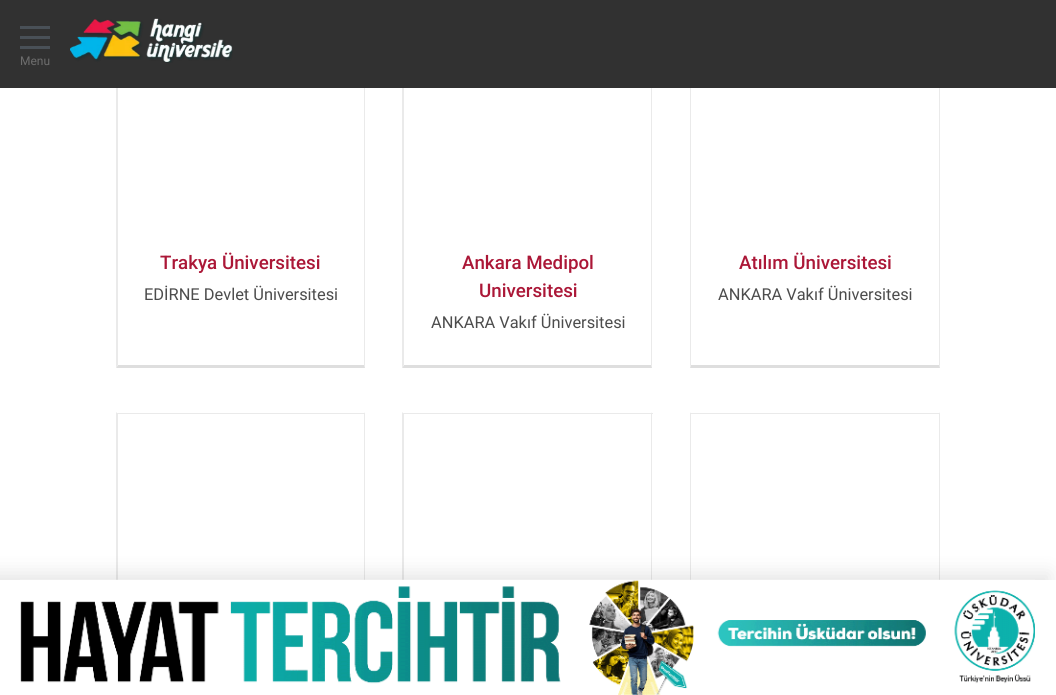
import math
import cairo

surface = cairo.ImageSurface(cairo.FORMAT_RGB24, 1056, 695)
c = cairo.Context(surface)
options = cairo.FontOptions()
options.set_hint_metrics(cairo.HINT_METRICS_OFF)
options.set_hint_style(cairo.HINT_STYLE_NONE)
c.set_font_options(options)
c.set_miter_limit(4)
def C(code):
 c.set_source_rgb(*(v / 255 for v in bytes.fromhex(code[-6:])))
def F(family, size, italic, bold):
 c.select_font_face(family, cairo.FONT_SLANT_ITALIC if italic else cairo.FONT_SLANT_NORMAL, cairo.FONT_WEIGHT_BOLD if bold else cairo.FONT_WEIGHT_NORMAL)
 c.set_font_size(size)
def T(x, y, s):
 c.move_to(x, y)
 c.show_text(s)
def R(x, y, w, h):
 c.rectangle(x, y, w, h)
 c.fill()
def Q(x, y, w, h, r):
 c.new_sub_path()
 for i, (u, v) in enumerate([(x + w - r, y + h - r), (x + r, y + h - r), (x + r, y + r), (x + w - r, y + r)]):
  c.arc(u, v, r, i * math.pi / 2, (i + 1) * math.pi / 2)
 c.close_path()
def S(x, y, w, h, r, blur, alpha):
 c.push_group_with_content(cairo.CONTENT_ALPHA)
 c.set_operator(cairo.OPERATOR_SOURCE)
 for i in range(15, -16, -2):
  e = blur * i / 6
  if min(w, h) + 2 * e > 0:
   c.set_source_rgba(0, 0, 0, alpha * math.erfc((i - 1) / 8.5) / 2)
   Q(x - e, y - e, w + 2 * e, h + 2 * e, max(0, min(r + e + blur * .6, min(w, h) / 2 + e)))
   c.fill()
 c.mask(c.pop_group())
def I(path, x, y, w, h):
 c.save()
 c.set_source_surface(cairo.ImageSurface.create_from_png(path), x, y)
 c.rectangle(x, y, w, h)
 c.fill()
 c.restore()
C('ffffff')
c.paint()
C('eaeaea')
c.new_path()
c.move_to(365,75)
c.line_to(365,368)
c.line_to(364,365)
c.line_to(364,76)
c.close_path()
c.fill()
C('dedede')
c.new_path()
c.move_to(365,368)
c.line_to(116,368)
c.line_to(118,365)
c.line_to(364,365)
c.close_path()
c.fill()
C('eaeaea')
c.new_path()
c.move_to(116,368)
c.line_to(116,75)
c.line_to(118,76)
c.line_to(118,365)
c.close_path()
c.fill()
c.new_path()
c.move_to(652,75)
c.line_to(652,368)
c.line_to(651,365)
c.line_to(651,76)
c.close_path()
c.fill()
C('dedede')
c.new_path()
c.move_to(652,368)
c.line_to(402,368)
c.line_to(404,365)
c.line_to(651,365)
c.close_path()
c.fill()
C('eaeaea')
c.new_path()
c.move_to(402,368)
c.line_to(402,75)
c.line_to(404,76)
c.line_to(404,365)
c.close_path()
c.fill()
c.new_path()
c.move_to(940,75)
c.line_to(940,368)
c.line_to(939,365)
c.line_to(939,76)
c.close_path()
c.fill()
C('dedede')
c.new_path()
c.move_to(940,368)
c.line_to(690,368)
c.line_to(691,365)
c.line_to(939,365)
c.close_path()
c.fill()
C('eaeaea')
c.new_path()
c.move_to(690,368)
c.line_to(690,75)
c.line_to(691,76)
c.line_to(691,365)
c.close_path()
c.fill()
C('313131')
R(0,0,1056,88)
C('495057')
R(20,36,30,3)
R(20,26,30,3)
R(20,46,30,3)
F('Roboto',12,0,0)
C('6d6d6d')
T(20,65,'Menu')
I('1.png',70,18,163,45)
F('Roboto Medium',18.75,0,0)
C('ab1737')
T(160,269,'Trakya Üniversitesi')
F('Roboto',16.4,0,0)
C('4c4c4c')
T(144,300,'EDİRNE Devlet Üniversitesi')
F('Roboto Medium',18.75,0,0)
C('ab1737')
T(462,269,'Ankara Medipol')
T(479,297,'Universitesi')
F('Roboto',16.4,0,0)
C('4c4c4c')
T(431,328,'ANKARA Vakıf Üniversitesi')
F('Roboto Medium',18.75,0,0)
C('ab1737')
T(739,269,'Atılım Üniversitesi')
F('Roboto',16.4,0,0)
C('4c4c4c')
T(718,300,'ANKARA Vakıf Üniversitesi')
C('eaeaea')
R(116,413,249,1)
c.new_path()
c.move_to(365,412)
c.line_to(365,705)
c.line_to(364,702)
c.line_to(364,414)
c.close_path()
c.fill()
c.new_path()
c.move_to(116,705)
c.line_to(116,412)
c.line_to(118,414)
c.line_to(118,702)
c.close_path()
c.fill()
R(403,413,250,1)
c.new_path()
c.move_to(652,412)
c.line_to(652,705)
c.line_to(651,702)
c.line_to(651,414)
c.close_path()
c.fill()
c.new_path()
c.move_to(402,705)
c.line_to(402,412)
c.line_to(404,414)
c.line_to(404,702)
c.close_path()
c.fill()
R(690,413,250,1)
c.new_path()
c.move_to(940,412)
c.line_to(940,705)
c.line_to(939,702)
c.line_to(939,414)
c.close_path()
c.fill()
c.new_path()
c.move_to(690,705)
c.line_to(690,412)
c.line_to(691,414)
c.line_to(691,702)
c.close_path()
c.fill()
C('000000')
S(-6,573,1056,115,0,9.5,.1)
C('ffffff')
R(0,580,1056,115)
I('2.png',20,579,1015,116)
surface.write_to_png('o.png')
